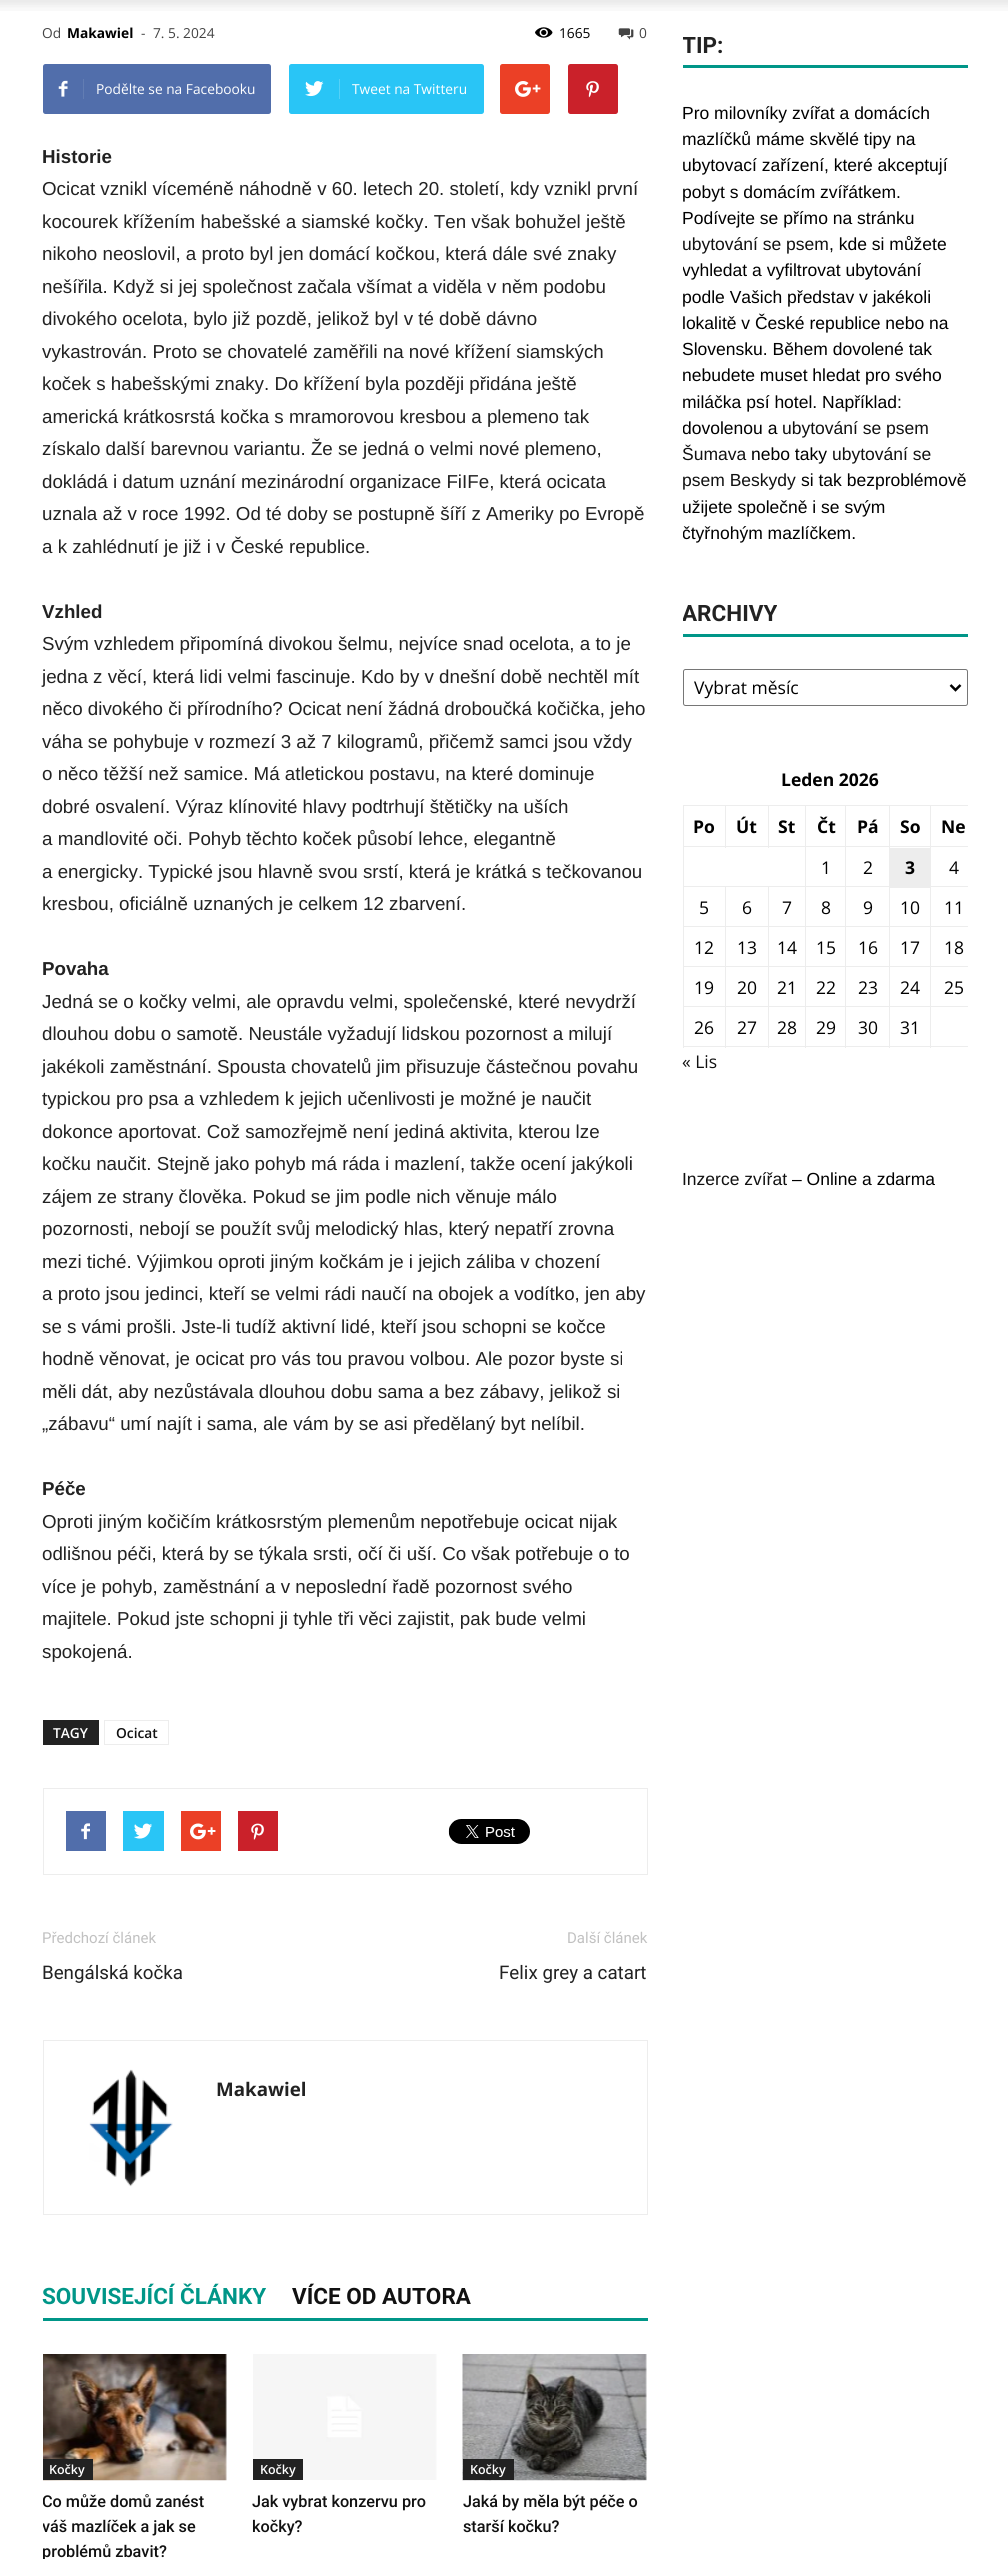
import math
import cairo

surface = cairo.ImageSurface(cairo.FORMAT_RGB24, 1008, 2559)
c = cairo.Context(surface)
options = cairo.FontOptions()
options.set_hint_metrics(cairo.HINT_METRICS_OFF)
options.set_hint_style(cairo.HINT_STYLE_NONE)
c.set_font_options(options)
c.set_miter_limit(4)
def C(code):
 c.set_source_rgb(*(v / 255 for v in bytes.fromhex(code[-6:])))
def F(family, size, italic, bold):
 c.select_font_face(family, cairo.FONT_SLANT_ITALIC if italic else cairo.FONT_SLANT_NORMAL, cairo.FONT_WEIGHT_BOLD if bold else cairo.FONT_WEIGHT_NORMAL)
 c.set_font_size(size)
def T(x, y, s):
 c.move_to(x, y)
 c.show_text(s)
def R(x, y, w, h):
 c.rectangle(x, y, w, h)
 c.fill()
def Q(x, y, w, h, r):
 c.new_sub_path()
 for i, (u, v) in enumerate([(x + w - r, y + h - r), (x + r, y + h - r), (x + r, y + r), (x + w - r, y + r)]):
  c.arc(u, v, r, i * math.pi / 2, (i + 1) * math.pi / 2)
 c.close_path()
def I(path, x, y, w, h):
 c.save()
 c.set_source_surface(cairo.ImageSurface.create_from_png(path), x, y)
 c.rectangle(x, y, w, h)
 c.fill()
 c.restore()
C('ffffff')
c.paint()
I('1.png',0,0,1008,11)
F('Open Sans',13.75,0,0)
C('444444')
T(42,38,'Od')
F('Open Sans',13.75,0,1)
C('000000')
T(67,38,'Makawiel')
F('Open Sans',13.75,0,0)
C('444444')
T(141,38,'-')
T(153,38,'7. 5. 2024')
I('2.png',535,27,18,11)
C('000000')
T(559,38,'1665')
I('3.png',618,28,16,12)
C('444444')
T(639,38,'0')
C('516eab')
Q(43,64,228,50,2.5)
c.fill()
I('4.png',58,80,10,17)
C('627db3')
R(83,79,1,20)
C('ffffff')
T(96,94,'Podělte se na Facebooku')
C('29c5f6')
Q(289,64,195,50,2.5)
c.fill()
I('5.png',305,81,19,16)
C('54d1f8')
R(339,79,1,20)
C('ffffff')
T(352,94,'Tweet na Twitteru')
C('eb4026')
Q(500,64,50,50,2.5)
c.fill()
I('6.png',515,81,26,16)
C('ca212a')
Q(568,64,50,50,2.5)
c.fill()
I('7.png',586,81,13,17)
F('Liberation Sans',18.75,0,1)
C('222222')
T(42,163,'Historie')
F('Liberation Sans',18.75,0,0)
T(42,195,'Ocicat vznikl víceméně náhodně v 60. letech 20. století, kdy vznikl první')
T(42,228,'kocourek křížením habešské a siamské kočky. Ten však bohužel ještě')
T(42,260,'nikoho neoslovil, a proto byl jen domácí kočkou, která dále své znaky')
T(42,293,'nešířila. Když si jej společnost začala všímat a viděla v něm podobu')
T(42,325,'divokého ocelota, bylo již pozdě, jelikož byl v té době dávno')
T(42,358,'vykastrován. Proto se chovatelé zaměřili na nové křížení siamských')
T(42,390,'koček s habešskými znaky. Do křížení byla později přidána ještě')
T(42,423,'americká krátkosrstá kočka s mramorovou kresbou a plemeno tak')
T(42,455,'získalo další barevnou variantu. Že se jedná o velmi nové plemeno,')
T(42,488,'dokládá i datum uznání mezinárodní organizace FiIFe, která ocicata')
T(42,520,'uznala až v roce 1992. Od té doby se postupně šíří z Ameriky po Evropě')
T(42,553,'a k zahlédnutí je již i v České republice.')
F('Liberation Sans',18.75,0,1)
T(42,618,'Vzhled')
F('Liberation Sans',18.75,0,0)
T(42,650,'Svým vzhledem připomíná divokou šelmu, nejvíce snad ocelota, a to je')
T(42,683,'jedna z věcí, která lidi velmi fascinuje. Kdo by v dnešní době nechtěl mít')
T(42,715,'něco divokého či přírodního? Ocicat není žádná droboučká kočička, jeho')
T(42,748,'váha se pohybuje v rozmezí 3 až 7 kilogramů, přičemž samci jsou vždy')
T(42,780,'o něco těžší než samice. Má atletickou postavu, na které dominuje')
T(42,813,'dobré osvalení. Výraz klínovité hlavy podtrhují štětičky na uších')
T(42,845,'a mandlovité oči. Pohyb těchto koček působí lehce, elegantně')
T(42,878,'a energicky. Typické jsou hlavně svou srstí, která je krátká s tečkovanou')
T(42,910,'kresbou, oficiálně uznaných je celkem 12 zbarvení.')
F('Liberation Sans',18.75,0,1)
T(42,975,'Povaha')
F('Liberation Sans',18.75,0,0)
T(42,1008,'Jedná se o kočky velmi, ale opravdu velmi, společenské, které nevydrží')
T(42,1040,'dlouhou dobu o samotě. Neustále vyžadují lidskou pozornost a milují')
T(42,1073,'jakékoli zaměstnání. Spousta chovatelů jim přisuzuje částečnou povahu')
T(42,1105,'typickou pro psa a vzhledem k jejich učenlivosti je možné je naučit')
T(42,1138,'dokonce aportovat. Což samozřejmě není jediná aktivita, kterou lze')
T(42,1170,'kočku naučit. Stejně jako pohyb má ráda i mazlení, takže ocení jakýkoli')
T(42,1203,'zájem ze strany člověka. Pokud se jim podle nich věnuje málo')
T(42,1235,'pozornosti, nebojí se použít svůj melodický hlas, který nepatří zrovna')
T(42,1268,'mezi tiché. Výjimkou oproti jiným kočkám je i jejich záliba v chození')
T(42,1300,'a proto jsou jedinci, kteří se velmi rádi naučí na obojek a vodítko, jen aby')
T(42,1333,'se s vámi prošli. Jste-li tudíž aktivní lidé, kteří jsou schopni se kočce')
T(42,1365,'hodně věnovat, je ocicat pro vás tou pravou volbou. Ale pozor byste si')
T(42,1398,'měli dát, aby nezůstávala dlouhou dobu sama a bez zábavy, jelikož si')
T(42,1430,'„zábavu“ umí najít i sama, ale vám by se asi předělaný byt nelíbil.')
F('Liberation Sans',18.75,0,1)
T(42,1495,'Péče')
F('Liberation Sans',18.75,0,0)
T(42,1528,'Oproti jiným kočičím krátkosrstým plemenům nepotřebuje ocicat nijak')
T(42,1560,'odlišnou péči, která by se týkala srsti, očí či uší. Co však potřebuje o to')
T(42,1593,'více je pohyb, zaměstnání a v neposlední řadě pozornost svého')
T(42,1625,'majitele. Pokud jste schopni ji tyhle tři věci zajistit, pak bude velmi')
T(42,1658,'spokojená.')
R(43,1720,56,25)
F('Open Sans SemiBold',13.75,0,0)
C('ffffff')
T(53,1738,'TAGY')
c.rectangle(104.5,1720.5,64,24)
C('ededed')
c.set_line_width(1)
c.stroke()
C('111111')
T(116,1738,'Ocicat')
c.rectangle(43.5,1788.5,604,86)
C('ededed')
c.stroke()
C('516eab')
R(66,1811,40,40)
I('8.png',81,1823,9,17)
C('29c5f6')
R(123,1811,41,40)
I('9.png',134,1823,18,16)
C('eb4026')
R(181,1811,40,40)
I('10.png',190,1823,26,17)
C('ca212a')
R(238,1811,40,40)
I('11.png',251,1823,13,17)
I('12.png',448,1819,82,25)
F('Roboto',15,0,0)
C('c1c1c1')
T(42,1943,'Předchozí článek')
F('Roboto',18.75,0,0)
C('222222')
T(42,1979,'Bengálská kočka')
F('Roboto',15,0,0)
C('c1c1c1')
T(567,1943,'Další článek')
F('Roboto',18.75,0,0)
C('222222')
T(499,1979,'Felix grey a catart')
c.rectangle(43.5,2040.5,604,174)
C('ededed')
c.stroke()
I('13.png',89,2069,84,118)
F('Open Sans',18.75,0,1)
C('222222')
T(216,2096,'Makawiel')
C('009688')
R(43,2318,605,3)
F('Roboto',22.5,0,1)
T(42,2304,'SOUVISEJÍCÍ ČLÁNKY')
C('111111')
T(292,2304,'VÍCE OD AUTORA')
I('14.png',43,2354,184,127)
C('222222')
R(43,2459,50,21)
F('Open Sans SemiBold',12.5,0,0)
C('ffffff')
T(49,2474,'Kočky')
c.save()
c.rectangle(43,2275,605,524)
c.clip()
F('Roboto Medium',16.25,0,0)
C('111111')
T(42,2507,'Co může domů zanést')
T(42,2532,'váš mazlíček a jak se')
T(42,2557,'problémů zbavit?')
c.restore()
I('15.png',253,2354,184,126)
C('222222')
R(253,2459,50,21)
C('ffffff')
T(260,2474,'Kočky')
F('Roboto Medium',16.25,0,0)
C('111111')
T(252,2507,'Jak vybrat konzervu pro')
T(252,2532,'kočky?')
I('16.png',462,2354,185,127)
C('222222')
R(463,2459,51,21)
F('Open Sans SemiBold',12.5,0,0)
C('ffffff')
T(470,2474,'Kočky')
F('Roboto Medium',16.25,0,0)
C('111111')
T(463,2507,'Jaká by měla být péče o')
T(463,2532,'starší kočku?')
C('009688')
R(683,65,285,3)
c.save()
c.rectangle(683,25,285,548)
c.clip()
F('Roboto',22.5,0,1)
C('222222')
T(682,53,'TIP:')
c.restore()
F('Liberation Sans',17.5,0,0)
C('000000')
T(682,119,'Pro milovníky zvířat a domácích')
T(682,145,'mazlíčků máme skvělé tipy na')
T(682,171,'ubytovací zařízení, které akceptují')
T(682,198,'pobyt s domácím zvířátkem.')
T(682,224,'Podívejte se přímo na stránku')
C('111111')
T(682,250,'ubytování se psem')
C('000000')
T(829,250,', kde si můžete')
c.save()
c.rectangle(683,25,285,548)
c.clip()
T(682,276,'vyhledat a vyfiltrovat ubytování')
c.restore()
T(682,303,'podle Vašich představ v jakékoli')
T(682,329,'lokalitě v České republice nebo na')
T(682,355,'Slovensku. Během dovolené tak')
T(682,381,'nebudete muset hledat pro svého')
T(682,408,'miláčka psí hotel. Například:')
c.save()
c.rectangle(683,25,285,548)
c.clip()
T(682,434,'dovolenou a')
c.restore()
C('111111')
T(782,434,'ubytování se psem')
T(682,460,'Šumava')
C('000000')
T(751,460,'nebo taky')
C('111111')
T(832,460,'ubytování se')
T(682,486,'psem Beskydy')
C('000000')
T(801,486,'si tak bezproblémově')
T(682,513,'užijete společně i se svým')
c.save()
c.rectangle(683,25,285,548)
c.clip()
T(682,539,'čtyřnohým mazlíčkem.')
c.restore()
C('009688')
R(683,634,285,3)
c.save()
c.rectangle(683,594,285,125)
c.clip()
F('Roboto',22.5,0,1)
C('222222')
T(682,621,'ARCHIVY')
c.restore()
Q(683.5,669.5,284,36,2)
C('767676')
c.stroke()
c.new_path()
c.move_to(950.5,685)
c.line_to(955.5,690)
c.line_to(960.5,685)
C('000000')
c.set_line_width(2.5)
c.stroke()
F('Open Sans',17.5,0,0)
T(694,694,'Vybrat měsíc')
F('Open Sans',17.5,0,1)
T(781,786,'Leden 2026')
C('ededed')
R(930,805,38,1)
R(930,846,38,1)
R(930,886,38,1)
R(930,926,38,1)
R(930,966,38,1)
R(930,1006,38,1)
R(930,1046,38,1)
R(930,1006,1,42)
R(889,1006,42,1)
R(930,966,1,42)
R(889,966,42,1)
R(930,926,1,42)
R(889,926,42,1)
R(930,886,1,42)
R(930,846,1,42)
R(889,846,42,1)
R(930,805,1,43)
R(889,805,42,1)
R(889,1046,42,1)
R(889,1006,1,42)
R(845,1006,45,1)
R(889,966,1,42)
R(845,966,45,1)
R(889,926,1,42)
R(845,926,45,1)
R(889,886,1,42)
R(845,886,45,1)
R(889,846,1,42)
R(845,846,45,1)
R(889,805,1,43)
R(845,805,45,1)
R(845,1046,45,1)
R(845,1006,1,42)
R(805,1006,41,1)
R(845,966,1,42)
R(805,966,41,1)
R(845,926,1,42)
R(805,926,41,1)
R(845,886,1,42)
R(805,886,41,1)
R(845,846,1,42)
R(805,846,41,1)
R(845,805,1,43)
R(805,805,41,1)
R(805,1046,41,1)
R(805,1006,1,42)
R(768,1006,38,1)
R(805,966,1,42)
R(768,966,38,1)
R(805,926,1,42)
R(768,926,38,1)
R(805,886,1,42)
R(768,886,38,1)
R(805,846,1,42)
R(683,846,123,1)
R(805,805,1,43)
R(768,805,38,1)
R(768,805,1,43)
R(725,805,44,1)
R(725,805,1,43)
R(683,805,43,1)
R(768,1046,38,1)
R(768,1006,1,42)
R(725,1006,44,1)
R(768,966,1,42)
R(725,966,44,1)
R(768,926,1,42)
R(725,926,44,1)
R(768,886,1,42)
R(725,886,44,1)
R(725,1046,44,1)
R(725,1006,1,42)
R(683,1006,43,1)
R(725,966,1,42)
R(683,966,43,1)
R(725,926,1,42)
R(683,926,43,1)
R(725,886,1,42)
R(683,886,43,1)
R(683,1046,43,1)
R(683,1006,1,42)
R(683,966,1,42)
R(683,926,1,42)
R(683,886,1,42)
R(683,846,1,42)
R(683,805,1,43)
C('000000')
T(693,833,'Po')
T(736,833,'Út')
T(778,833,'St')
T(817,833,'Čt')
T(857,833,'Pá')
T(900,833,'So')
T(941,833,'Ne')
F('Open Sans',17.5,0,0)
T(821,874,'1')
T(863,874,'2')
C('ededed')
R(890,848,40,40)
F('Open Sans',17.5,0,1)
C('000000')
T(905,874,'3')
F('Open Sans',17.5,0,0)
T(949,874,'4')
T(699,914,'5')
T(742,914,'6')
T(782,914,'7')
T(821,914,'8')
T(863,914,'9')
T(900,914,'10')
T(944,914,'11')
T(694,954,'12')
T(737,954,'13')
T(777,954,'14')
T(816,954,'15')
T(858,954,'16')
T(900,954,'17')
T(944,954,'18')
T(694,994,'19')
T(737,994,'20')
T(777,994,'21')
T(816,994,'22')
T(858,994,'23')
T(900,994,'24')
T(944,994,'25')
T(694,1034,'26')
T(737,1034,'27')
T(777,1034,'28')
T(816,1034,'29')
T(858,1034,'30')
T(900,1034,'31')
C('111111')
T(682,1068,'« Lis')
F('Liberation Sans',17.5,0,0)
T(682,1185,'Inzerce zvířat')
C('000000')
T(792,1185,'– Online a zdarma')
surface.write_to_png('o.png')
